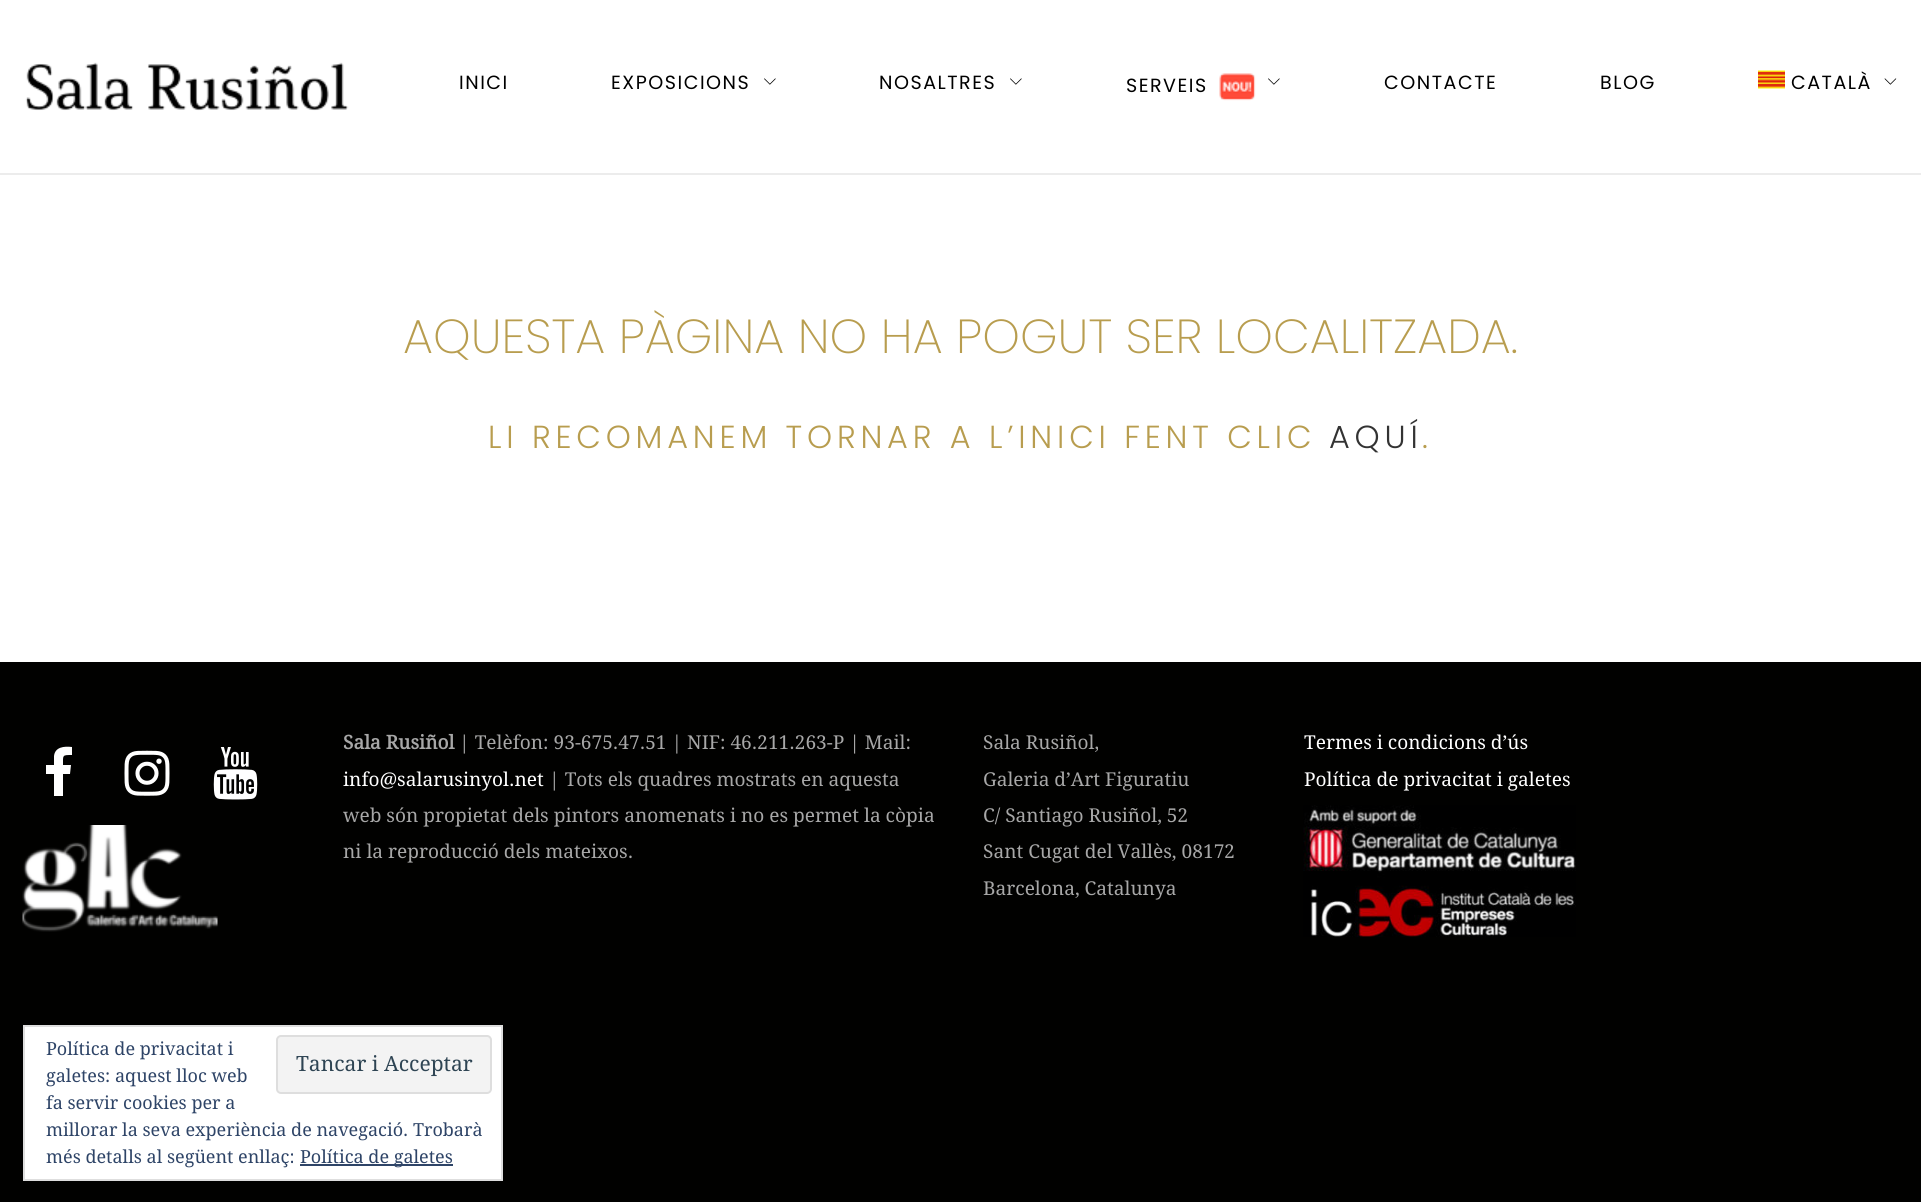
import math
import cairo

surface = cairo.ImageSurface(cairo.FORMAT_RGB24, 1921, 1202)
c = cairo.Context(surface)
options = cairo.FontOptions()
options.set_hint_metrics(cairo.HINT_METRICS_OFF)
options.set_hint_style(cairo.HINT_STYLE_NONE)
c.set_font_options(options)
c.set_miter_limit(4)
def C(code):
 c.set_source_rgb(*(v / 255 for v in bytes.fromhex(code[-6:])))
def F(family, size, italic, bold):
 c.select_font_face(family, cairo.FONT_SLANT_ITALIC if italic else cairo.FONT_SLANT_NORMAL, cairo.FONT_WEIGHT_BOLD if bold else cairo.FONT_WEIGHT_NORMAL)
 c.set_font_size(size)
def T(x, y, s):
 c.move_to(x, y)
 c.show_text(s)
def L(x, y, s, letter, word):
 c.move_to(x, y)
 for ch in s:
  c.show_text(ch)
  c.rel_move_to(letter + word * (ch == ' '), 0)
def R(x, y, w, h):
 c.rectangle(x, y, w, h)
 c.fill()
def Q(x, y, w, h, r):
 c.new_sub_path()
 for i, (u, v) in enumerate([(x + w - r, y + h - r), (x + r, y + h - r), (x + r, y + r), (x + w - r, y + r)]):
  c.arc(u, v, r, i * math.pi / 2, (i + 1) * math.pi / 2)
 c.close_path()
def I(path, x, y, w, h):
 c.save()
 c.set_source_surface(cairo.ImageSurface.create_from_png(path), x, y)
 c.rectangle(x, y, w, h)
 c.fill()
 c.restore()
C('ffffff')
c.paint()
I('1.png',25,62,324,49)
F('Poppins',19.1,0,0)
C('000000')
L(459,89,'INICI',1.5,0)
L(611,89,'EXPOSICIONS',1.5,0)
I('2.png',764,78,12,7)
L(879,89,'NOSALTRES',1.5,0)
I('2.png',1010,78,12,7)
L(1126,92,'SERVEIS',1.5,0)
I('3.png',1219,73,37,28)
I('2.png',1268,78,12,7)
L(1384,89,'CONTACTE',1.5,0)
L(1600,89,'BLOG',1.5,0)
I('4.png',1758,70,27,19)
L(1791,89,'CATALÀ',1.5,0)
I('5.png',1884,78,13,7)
C('ececec')
R(0,173,1921,2)
F('Poppins ExtraLight',47.8,0,0)
C('b89d4f')
T(403,353,'AQUESTA PÀGINA NO HA POGUT SER LOCALITZADA.')
F('Poppins Light',31.9,0,0)
L(488,448,'LI RECOMANEM TORNAR A L’INICI FENT CLIC',4.8,0)
C('333333')
L(1329,448,'AQUÍ',4.8,0)
C('b89d4f')
L(1422,448,'.',4.8,0)
C('010100')
R(0,662,1921,540)
C('ffffff')
c.new_path()
c.move_to(72,747)
c.line_to(72,755)
c.curve_to(62,755,63,755,63,765)
c.line_to(71,765)
c.line_to(70,774)
c.line_to(63,774)
c.line_to(63,796)
c.line_to(54,796)
c.line_to(54,774)
c.line_to(46,774)
c.line_to(46,765)
c.line_to(54,765)
c.line_to(54,756)
c.curve_to(55,747,64,746,72,747)
c.close_path()
c.fill()
I('6.png',124,750,46,46)
I('7.png',213,747,45,53)
I('8.png',22,825,196,107)
F('Droid Serif',19.1,0,1)
C('a7a7a7')
T(343,749,'Sala Rusiñol')
F('Droid Serif',19.1,0,0)
T(459,749,'| Telèfon: 93-675.47.51 | NIF: 46.211.263-P | Mail:')
C('ffffff')
T(343,786,'info@salarusinyol.net')
C('a7a7a7')
T(549,786,'| Tots els quadres mostrats en aquesta')
T(343,822,'web són propietat dels pintors anomenats i no es permet la còpia')
T(343,858,'ni la reproducció dels mateixos.')
T(983,749,'Sala Rusiñol,')
T(983,786,'Galeria d’Art Figuratiu')
T(983,822,'C/ Santiago Rusiñol, 52')
T(983,858,'Sant Cugat del Vallès, 08172')
T(983,895,'Barcelona, Catalunya')
C('ffffff')
T(1304,749,'Termes i condicions d’ús')
T(1304,786,'Política de privacitat i galetes')
I('9.png',1303,805,273,132)
c.rectangle(24,1026,478,154)
c.fill_preserve()
C('dedede')
c.stroke()
F('Droid Serif',18,0,0)
C('2e4467')
T(46,1055,'Política de privacitat i')
T(46,1082,'galetes: aquest lloc web')
C('f3f3f3')
Q(277,1036,214,57,4)
c.fill_preserve()
C('dedede')
c.stroke()
F('Droid Serif',21,0,0)
C('2e4453')
T(296,1071,'Tancar i Acceptar')
F('Droid Serif',18,0,0)
C('2e4467')
T(46,1109,'fa servir cookies per a')
T(46,1136,'millorar la seva experiència de navegació. Trobarà')
T(46,1163,'més detalls al següent enllaç:')
R(300,1164,153,2)
T(300,1163,'Política de galetes')
surface.write_to_png('o.png')
